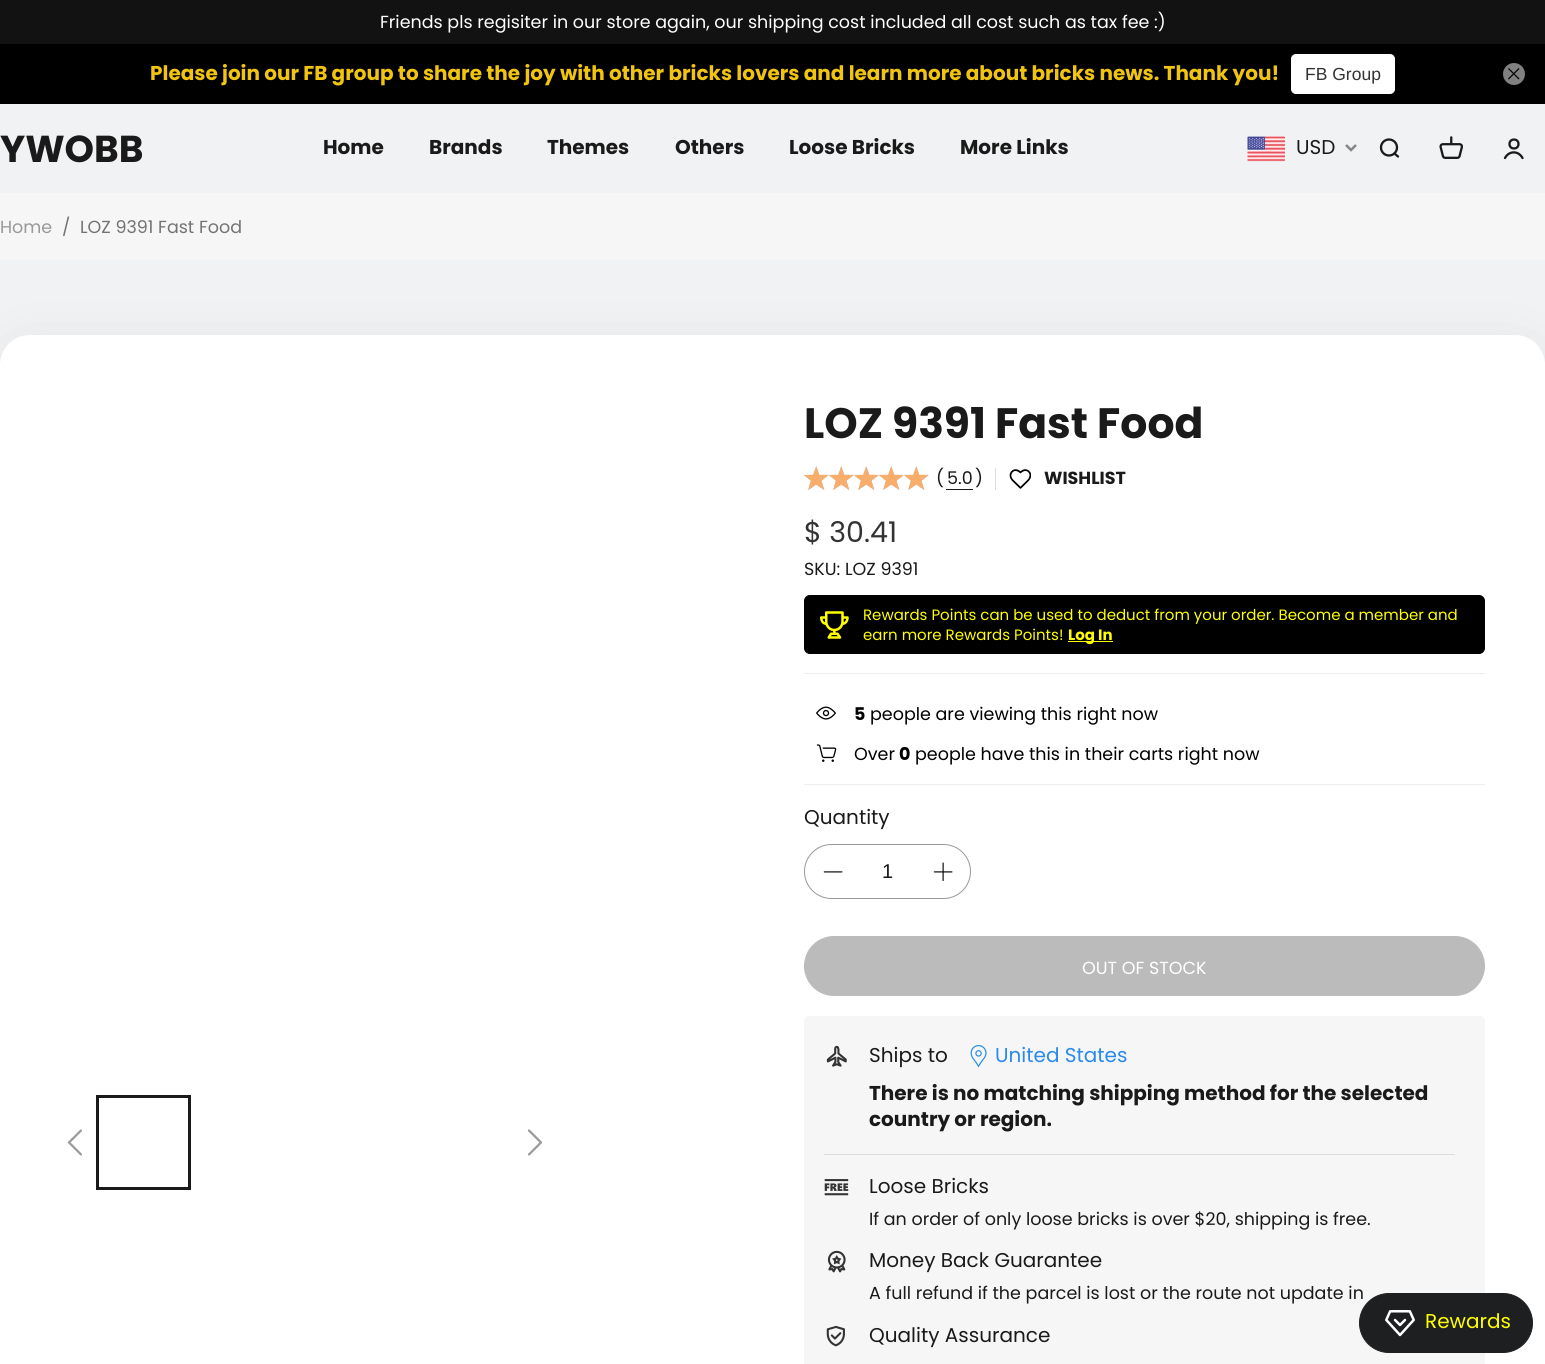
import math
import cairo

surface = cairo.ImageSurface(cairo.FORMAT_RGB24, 1545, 1364)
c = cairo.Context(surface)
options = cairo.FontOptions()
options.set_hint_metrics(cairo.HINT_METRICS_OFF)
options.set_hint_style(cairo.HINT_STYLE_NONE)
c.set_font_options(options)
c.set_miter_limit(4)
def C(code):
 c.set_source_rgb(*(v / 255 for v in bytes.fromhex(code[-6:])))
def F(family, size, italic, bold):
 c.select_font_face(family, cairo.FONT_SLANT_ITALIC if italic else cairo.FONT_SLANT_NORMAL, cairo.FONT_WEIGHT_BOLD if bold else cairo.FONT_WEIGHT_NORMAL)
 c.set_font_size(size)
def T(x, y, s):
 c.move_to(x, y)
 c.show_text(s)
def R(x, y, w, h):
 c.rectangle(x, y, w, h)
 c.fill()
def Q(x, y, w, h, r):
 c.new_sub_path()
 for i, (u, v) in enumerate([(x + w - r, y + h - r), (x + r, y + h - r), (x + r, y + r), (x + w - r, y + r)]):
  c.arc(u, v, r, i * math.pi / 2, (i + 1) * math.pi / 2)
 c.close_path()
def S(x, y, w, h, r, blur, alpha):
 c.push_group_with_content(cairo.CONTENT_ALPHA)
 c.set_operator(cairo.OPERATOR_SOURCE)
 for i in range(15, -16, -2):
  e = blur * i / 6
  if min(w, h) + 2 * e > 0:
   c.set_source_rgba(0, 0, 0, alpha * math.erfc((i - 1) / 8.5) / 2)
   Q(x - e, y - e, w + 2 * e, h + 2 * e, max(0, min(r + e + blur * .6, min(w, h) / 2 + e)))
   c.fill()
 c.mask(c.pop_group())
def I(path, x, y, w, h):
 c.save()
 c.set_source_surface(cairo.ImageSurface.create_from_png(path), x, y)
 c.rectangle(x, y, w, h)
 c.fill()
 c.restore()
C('f1f2f4')
c.paint()
C('121212')
R(0,0,1545,44)
F('Poppins',17.5,0,0)
C('ffffff')
T(380,28,'Friends pls regisiter in our store again, our shipping cost included all cost such as tax fee :)')
C('000000')
R(0,44,1545,60)
F('Poppins',20,0,1)
C('f1c40f')
T(150,80,'Please join our FB group to share the joy with other bricks lovers and learn more about bricks news. Thank you!')
C('ffffff')
Q(1291.5,54.5,103,39,4.5)
c.fill_preserve()
c.set_line_width(1)
c.stroke()
F('Liberation Sans',17.5,0,0)
C('333333')
T(1305,80,'FB Group')
C('808080')
c.new_path()
c.arc(1514,74,11,0,2 * math.pi)
c.fill()
I('1.png',1508,68,12,12)
F('Poppins',37.5,0,1)
C('1a1a1a')
T(0,162,'YWOBB')
F('Poppins',20,0,1)
T(323,154,'Home')
T(429,154,'Brands')
T(547,154,'Themes')
T(675,154,'Others')
T(789,154,'Loose Bricks')
T(960,154,'More Links')
I('2.png',1247,136,38,26)
F('Poppins',20,0,0)
T(1296,154,'USD')
c.new_path()
c.move_to(1346,145)
c.line_to(1351,150)
c.line_to(1356,145)
C('868687')
c.set_line_width(2.5)
c.stroke()
c.arc(1389,147.5,8,0,2 * math.pi)
C('1a1a1a')
c.set_line_width(2.3)
c.stroke()
c.new_path()
c.move_to(1394.5,153.5)
c.line_to(1398,156.5)
c.set_line_cap(cairo.LINE_CAP_ROUND)
c.set_line_join(cairo.LINE_JOIN_ROUND)
c.stroke()
I('3.png',1439,136,24,23)
c.arc(1514,144,4.5,0,2 * math.pi)
c.set_line_cap(cairo.LINE_CAP_BUTT)
c.set_line_join(cairo.LINE_JOIN_MITER)
c.stroke()
c.new_path()
c.move_to(1505,158)
c.curve_to(1509,150.5,1518.5,150.5,1522.5,158)
c.set_line_cap(cairo.LINE_CAP_ROUND)
c.stroke()
C('f6f6f6')
R(0,193,1545,67)
F('Poppins',17.5,0,0)
C('999999')
T(0,233,'Home')
C('737373')
T(62,233,'/')
T(80,233,'LOZ 9391 Fast Food')
C('1a1a1a')
S(0,358,1545,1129,30,31,.1)
C('ffffff')
Q(0,335,1545,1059,30)
c.fill()
I('4.png',67,1129,15,27)
c.rectangle(97.5,1096.5,92,92)
C('1a1a1a')
c.set_line_width(3)
c.set_line_cap(cairo.LINE_CAP_BUTT)
c.stroke()
I('5.png',527,1129,15,27)
F('Poppins',42.5,0,1)
T(804,438,'LOZ 9391 Fast Food')
I('6.png',804,466,25,24)
I('6.png',829,466,25,24)
I('6.png',854,466,25,24)
I('6.png',879,466,25,24)
I('6.png',904,466,25,24)
I('7.png',804,466,25,24)
I('7.png',829,466,25,24)
I('7.png',854,466,25,24)
I('7.png',879,466,25,24)
I('7.png',904,466,25,24)
F('Poppins',17.5,0,0)
T(936,484,'(')
T(947,484,'5.0')
R(946,489,27,1)
T(975,484,')')
C('dddddd')
R(995,468,1,22)
I('8.png',1009,469,22,20)
F('Poppins',17.5,0,1)
C('1a1a1a')
T(1044,484,'WISHLIST')
F('Poppins',28.5,0,0)
C('333333')
T(804,542,'$ 30.41')
F('Poppins',17.5,0,0)
C('1a1a1a')
T(804,575,'SKU: LOZ 9391')
C('000000')
Q(804.5,595.5,680,58,5.5)
c.fill_preserve()
c.set_line_width(1)
c.stroke()
I('9.png',820,611,29,28)
F('Poppins',15,0,0)
C('ffff00')
T(863,620,'Rewards Points can be used to deduct from your order. Become a member and')
T(863,640,'earn more Rewards Points!')
R(1068,641,45,1)
F('Poppins',15,0,1)
T(1068,640,'Log In')
C('eeeeee')
R(804,673,681,1)
R(804,784,681,1)
I('10.png',816,706,20,14)
F('Poppins',17.5,0,1)
C('000000')
T(854,720,'5')
F('Poppins',17.5,0,0)
T(870,720,'people are viewing this right now')
I('11.png',816,744,21,18)
T(854,760,'Over')
F('Poppins',17.5,0,1)
T(899,760,'0')
F('Poppins',17.5,0,0)
T(915,760,'people have this in their carts right now')
F('Poppins',20,0,0)
C('1a1a1a')
T(804,824,'Quantity')
Q(804.5,844.5,166,54,27)
C('999999')
c.stroke()
I('12.png',823,871,20,2)
F('Liberation Sans',20,0,0)
C('1a1a1a')
T(882,878,'1')
I('13.png',933,862,20,19)
C('bbbbbb')
Q(804.5,936.5,680,59,29.5)
c.fill_preserve()
c.stroke()
F('Poppins',17.5,0,0)
C('ffffff')
T(1082,974,'OUT OF STOCK')
C('f6f6f6')
Q(804,1016,681,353,5)
c.fill()
C('dddddd')
R(824,1154,631,1)
I('14.png',826,1045,21,22)
F('Poppins',20,0,0)
C('1a1a1a')
T(869,1062,'Ships to')
I('15.png',970,1045,17,23)
C('288aeb')
T(995,1062,'United States')
F('Poppins',20,0,1)
C('1a1a1a')
T(869,1100,'There is no matching shipping method for the selected')
T(869,1126,'country or region.')
I('16.png',824,1179,25,17)
F('Poppins',20,0,0)
T(869,1193,'Loose Bricks')
F('Poppins',17.5,0,0)
T(869,1225,'If an order of only loose bricks is over $20, shipping is free.')
I('17.png',827,1250,19,23)
F('Poppins',20,0,0)
T(869,1267,'Money Back Guarantee')
F('Poppins',17.5,0,0)
T(869,1299,'A full refund if the parcel is lost or the route not update in')
I('18.png',826,1325,19,22)
F('Poppins',20,0,0)
T(869,1342,'Quality Assurance')
C('1d1f21')
Q(1359.5,1293.5,173,59,29.5)
c.fill_preserve()
c.stroke()
I('19.png',1385,1310,30,27)
C('ffff00')
T(1425,1328,'Rewards')
surface.write_to_png('o.png')
